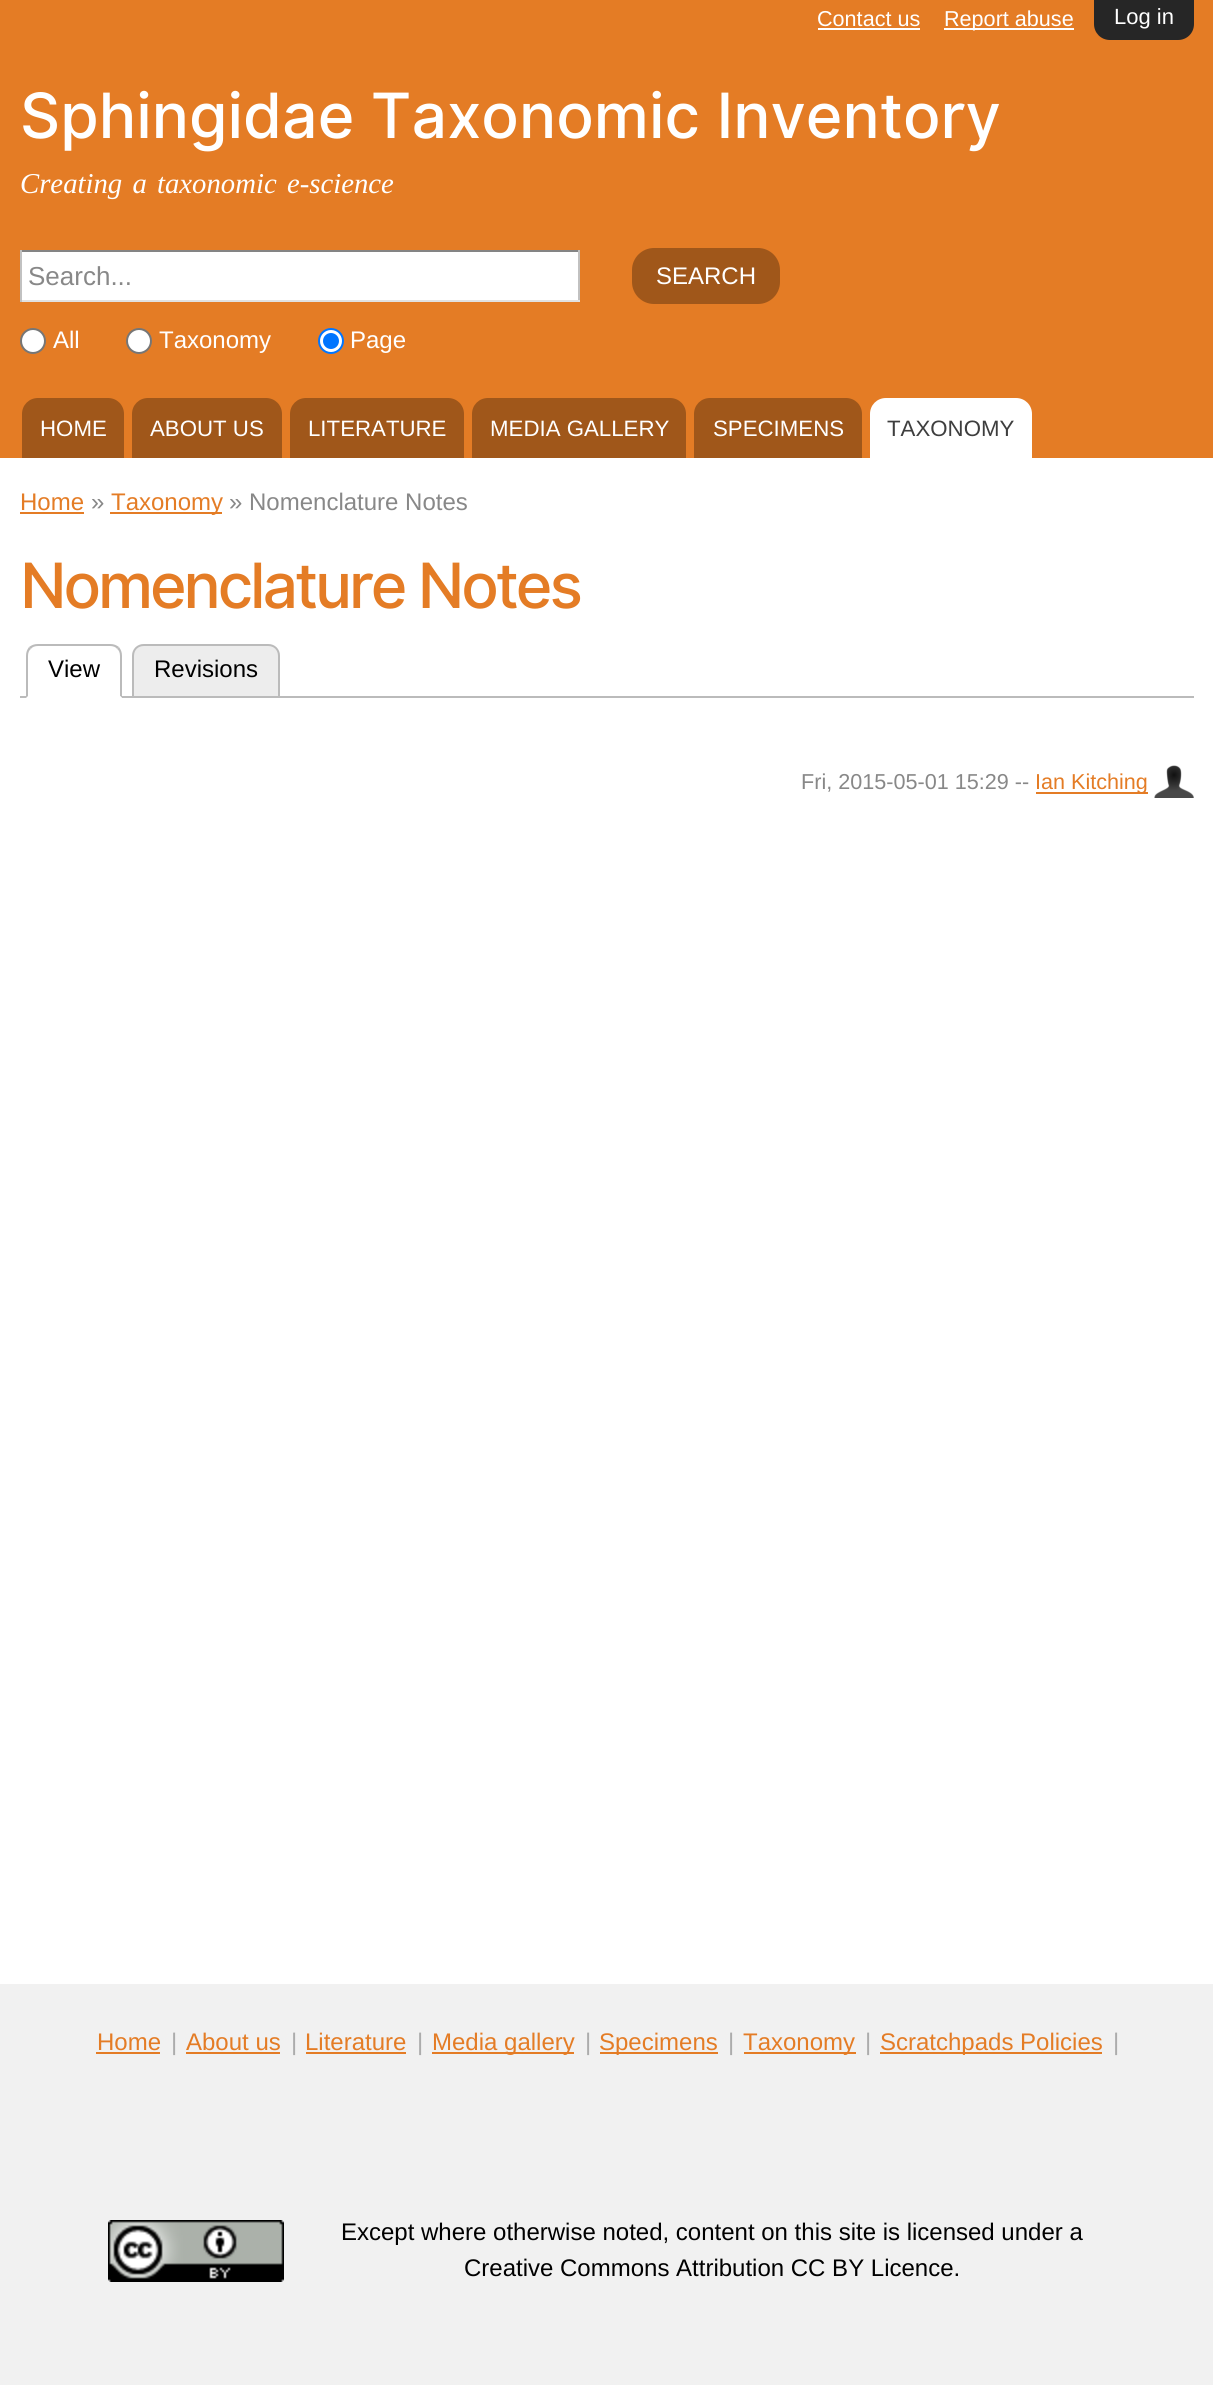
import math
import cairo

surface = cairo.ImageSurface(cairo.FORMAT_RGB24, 1213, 2385)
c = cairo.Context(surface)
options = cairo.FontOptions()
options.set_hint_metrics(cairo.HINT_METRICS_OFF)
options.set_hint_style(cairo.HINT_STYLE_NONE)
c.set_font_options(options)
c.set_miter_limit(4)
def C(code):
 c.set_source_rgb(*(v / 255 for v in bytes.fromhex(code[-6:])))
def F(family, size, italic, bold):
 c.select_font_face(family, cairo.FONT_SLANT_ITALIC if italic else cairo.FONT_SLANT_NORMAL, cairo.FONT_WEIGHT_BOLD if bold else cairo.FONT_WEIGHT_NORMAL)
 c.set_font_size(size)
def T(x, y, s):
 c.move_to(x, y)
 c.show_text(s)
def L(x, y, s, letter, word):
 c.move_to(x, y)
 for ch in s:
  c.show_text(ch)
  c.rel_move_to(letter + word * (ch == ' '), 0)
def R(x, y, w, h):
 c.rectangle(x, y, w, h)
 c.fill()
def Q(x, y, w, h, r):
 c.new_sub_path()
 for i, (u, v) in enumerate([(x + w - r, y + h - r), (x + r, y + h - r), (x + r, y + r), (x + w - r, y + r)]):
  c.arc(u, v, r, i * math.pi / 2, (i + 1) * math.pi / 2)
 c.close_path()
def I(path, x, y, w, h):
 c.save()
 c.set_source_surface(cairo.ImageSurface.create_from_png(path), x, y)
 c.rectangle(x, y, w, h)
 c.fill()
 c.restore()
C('ffffff')
c.paint()
C('e47c25')
R(0,0,1213,458)
F('Liberation Sans',21.6,0,0)
C('ffffff')
T(817,26,'Contact us')
R(818,28,102,2)
R(944,28,130,2)
T(944,26,'Report abuse')
F('Inter Medium',62.4,0,0)
T(20,138,'Sphingidae Taxonomic Inventory')
F('Liberation Serif',28.75,1,0)
L(20,193,'Creating a taxonomic e-science',0,3)
R(22,252,556,48)
C('848484')
R(20,250,560,2)
C('c1c1c1')
R(578,250,2,52)
C('e1e1e1')
R(20,300,560,2)
C('c1c1c1')
R(20,250,2,52)
F('Liberation Sans',26,0,0)
C('888888')
T(28,285,'Search...')
C('a0571a')
Q(632,248,148,56,22)
c.fill()
F('Liberation Sans',24,0,0)
C('ffffff')
T(656,284,'SEARCH')
c.new_path()
c.arc(33,341,12,0,2 * math.pi)
c.fill_preserve()
C('767676')
c.stroke()
C('ffffff')
T(53,348,'All')
c.new_path()
c.arc(139,341,12,0,2 * math.pi)
c.fill_preserve()
C('767676')
c.stroke()
C('ffffff')
T(159,348,'Taxonomy')
c.new_path()
c.arc(331,341,12,0,2 * math.pi)
c.fill_preserve()
C('0075ff')
c.stroke()
c.arc(331,341,8,0,2 * math.pi)
c.fill()
C('ffffff')
T(350,348,'Page')
C('a0571a')
c.new_path()
c.move_to(38,398)
c.line_to(108,398)
c.curve_to(117,398,124,405,124,414)
c.line_to(124,458)
c.line_to(22,458)
c.line_to(22,414)
c.curve_to(22,405,29,398,38,398)
c.close_path()
c.fill()
F('Liberation Sans',22.25,0,0)
C('ffffff')
T(40,436,'HOME')
C('a0571a')
c.new_path()
c.move_to(148,398)
c.line_to(266,398)
c.curve_to(275,398,282,405,282,414)
c.line_to(282,458)
c.line_to(132,458)
c.line_to(132,414)
c.curve_to(132,405,139,398,148,398)
c.close_path()
c.fill()
C('ffffff')
T(150,436,'ABOUT US')
C('a0571a')
c.new_path()
c.move_to(306,398)
c.line_to(448,398)
c.curve_to(457,398,464,405,464,414)
c.line_to(464,458)
c.line_to(290,458)
c.line_to(290,414)
c.curve_to(290,405,297,398,306,398)
c.close_path()
c.fill()
C('ffffff')
T(308,436,'LITERATURE')
C('a0571a')
c.new_path()
c.move_to(488,398)
c.line_to(670,398)
c.curve_to(679,398,686,405,686,414)
c.line_to(686,458)
c.line_to(472,458)
c.line_to(472,414)
c.curve_to(472,405,479,398,488,398)
c.close_path()
c.fill()
C('ffffff')
T(490,436,'MEDIA GALLERY')
C('a0571a')
c.new_path()
c.move_to(710,398)
c.line_to(846,398)
c.curve_to(855,398,862,405,862,414)
c.line_to(862,458)
c.line_to(694,458)
c.line_to(694,414)
c.curve_to(694,405,701,398,710,398)
c.close_path()
c.fill()
C('ffffff')
T(713,436,'SPECIMENS')
c.new_path()
c.move_to(886,398)
c.line_to(1016,398)
c.curve_to(1025,398,1032,405,1032,414)
c.line_to(1032,458)
c.line_to(870,458)
c.line_to(870,414)
c.curve_to(870,405,877,398,886,398)
c.close_path()
c.fill()
C('3e3e3e')
T(887,436,'TAXONOMY')
C('262626')
c.new_path()
c.move_to(1094,0)
c.line_to(1194,0)
c.line_to(1194,24)
c.curve_to(1194,33,1187,40,1178,40)
c.line_to(1110,40)
c.curve_to(1101,40,1094,33,1094,24)
c.close_path()
c.fill()
F('Liberation Sans',22,0,0)
C('ffffff')
T(1114,24,'Log in')
F('Liberation Sans',24,0,0)
C('e47c25')
T(20,510,'Home')
R(20,512,64,2)
C('888888')
T(91,510,'»')
C('e47c25')
R(110,512,112,2)
T(111,510,'Taxonomy')
C('888888')
T(229,510,'» Nomenclature Notes')
F('Inter Medium',62.4,0,0)
C('e47c25')
L(20,608,'Nomenclature Notes',-3.1,0)
C('bbbbbb')
R(20,696,1174,2)
C('ffffff')
c.new_path()
c.move_to(38,644)
c.line_to(110,644)
c.curve_to(116.5,644,122,649.5,122,656)
c.line_to(122,698)
c.line_to(26,698)
c.line_to(26,656)
c.curve_to(26,649.5,31.5,644,38,644)
c.close_path()
c.fill()
C('bbbbbb')
c.new_path()
c.move_to(38,644)
c.curve_to(34,644,32,645,29,647)
c.line_to(31,649)
c.curve_to(32,647,35,646,38,646)
c.line_to(110,646)
c.curve_to(113,646,116,647,117,649)
c.line_to(119,647)
c.curve_to(116,645,114,644,110,644)
c.close_path()
c.fill()
c.new_path()
c.move_to(122,698)
c.line_to(122,656)
c.curve_to(122,652,121,650,119,647)
c.line_to(117,649)
c.curve_to(119,650,120,653,120,656)
c.line_to(120,696)
c.close_path()
c.fill()
C('ffffff')
c.new_path()
c.move_to(122,698)
c.line_to(120,696)
c.line_to(28,696)
c.line_to(26,698)
c.close_path()
c.fill()
C('bbbbbb')
c.new_path()
c.move_to(26,698)
c.line_to(28,696)
c.line_to(28,656)
c.curve_to(28,653,29,650,31,649)
c.line_to(29,647)
c.curve_to(27,650,26,652,26,656)
c.close_path()
c.fill()
F('Liberation Sans',24,0,0)
C('000000')
T(48,677,'View')
C('ededed')
c.new_path()
c.move_to(144,644)
c.line_to(268,644)
c.curve_to(274.5,644,280,649.5,280,656)
c.line_to(280,696)
c.line_to(132,696)
c.line_to(132,656)
c.curve_to(132,649.5,137.5,644,144,644)
c.close_path()
c.fill()
C('bbbbbb')
c.set_fill_rule(cairo.FILL_RULE_EVEN_ODD)
c.new_path()
c.move_to(144,644)
c.line_to(268,644)
c.curve_to(275,644,280,649,280,656)
c.line_to(280,696)
c.line_to(132,696)
c.line_to(132,656)
c.curve_to(132,649,137,644,144,644)
c.close_path()
c.move_to(144,646)
c.line_to(268,646)
c.curve_to(274,646,278,650,278,656)
c.line_to(278,696)
c.line_to(134,696)
c.line_to(134,656)
c.curve_to(134,650,138,646,144,646)
c.close_path()
c.fill()
C('000000')
T(154,677,'Revisions')
F('Liberation Sans',21.6,0,0)
C('888888')
T(801,789,'Fri, 2015-05-01 15:29 --')
C('e47c25')
R(1036,792,112,2)
T(1035,789,'Ian Kitching')
I('1.png',1154,765,40,33)
C('f1f1f1')
R(0,1984,1213,401)
F('Liberation Sans',24,0,0)
C('e47c25')
T(97,2050,'Home')
R(96,2052,64,2)
C('acacac')
T(171,2050,'|')
C('e47c25')
T(186,2050,'About us')
R(186,2052,94,2)
C('acacac')
T(291,2050,'|')
C('e47c25')
T(305,2050,'Literature')
R(306,2052,100,2)
C('acacac')
T(417,2050,'|')
C('e47c25')
R(432,2052,142,2)
T(432,2050,'Media gallery')
C('acacac')
T(585,2050,'|')
C('e47c25')
R(600,2052,118,2)
T(599,2050,'Specimens')
C('acacac')
T(728,2050,'|')
C('e47c25')
R(744,2052,112,2)
T(743,2050,'Taxonomy')
C('acacac')
T(865,2050,'|')
C('e47c25')
R(880,2052,222,2)
T(880,2050,'Scratchpads Policies')
C('acacac')
T(1113,2050,'|')
I('2.png',108,2220,176,62)
C('000000')
T(341,2240,'Except where otherwise noted, content on this site is licensed under a')
T(464,2276,'Creative Commons Attribution CC BY Licence.')
surface.write_to_png('o.png')
